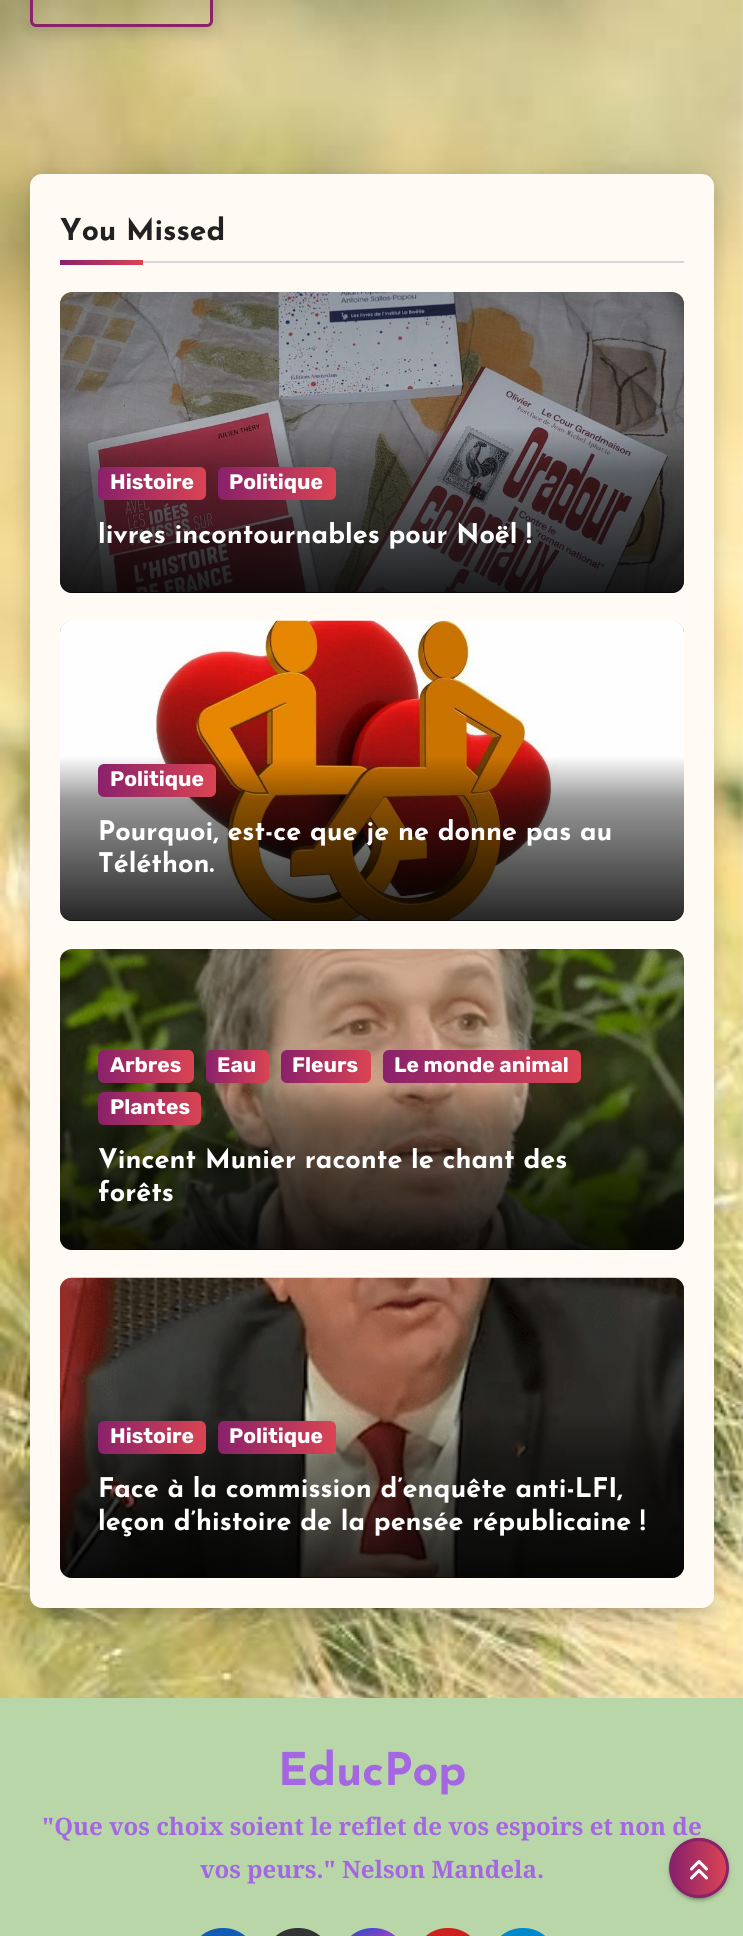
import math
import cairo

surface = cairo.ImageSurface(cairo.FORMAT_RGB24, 743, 1936)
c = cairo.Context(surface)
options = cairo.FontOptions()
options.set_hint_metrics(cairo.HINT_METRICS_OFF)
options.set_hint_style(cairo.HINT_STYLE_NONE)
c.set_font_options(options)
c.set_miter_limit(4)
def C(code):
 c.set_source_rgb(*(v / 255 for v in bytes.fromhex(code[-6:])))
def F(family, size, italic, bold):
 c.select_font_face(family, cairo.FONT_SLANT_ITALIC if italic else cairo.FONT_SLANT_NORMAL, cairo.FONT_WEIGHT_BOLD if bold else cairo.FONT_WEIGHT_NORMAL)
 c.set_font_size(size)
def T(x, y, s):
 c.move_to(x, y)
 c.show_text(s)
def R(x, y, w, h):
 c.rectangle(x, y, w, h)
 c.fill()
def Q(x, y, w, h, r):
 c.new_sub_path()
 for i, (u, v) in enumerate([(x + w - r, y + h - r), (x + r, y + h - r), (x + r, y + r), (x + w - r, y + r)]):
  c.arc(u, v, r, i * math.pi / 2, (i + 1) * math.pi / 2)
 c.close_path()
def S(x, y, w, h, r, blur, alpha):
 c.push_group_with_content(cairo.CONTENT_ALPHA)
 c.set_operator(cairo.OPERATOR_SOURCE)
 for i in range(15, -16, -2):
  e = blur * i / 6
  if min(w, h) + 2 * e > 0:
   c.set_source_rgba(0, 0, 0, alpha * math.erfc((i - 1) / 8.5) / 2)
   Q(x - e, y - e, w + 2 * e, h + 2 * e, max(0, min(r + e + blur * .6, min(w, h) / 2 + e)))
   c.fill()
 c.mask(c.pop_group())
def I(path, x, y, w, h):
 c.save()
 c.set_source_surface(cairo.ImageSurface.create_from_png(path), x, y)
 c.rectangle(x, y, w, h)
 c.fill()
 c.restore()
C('ffffff')
c.paint()
I('1.png',0,0,743,1698)
c.save()
c.set_fill_rule(cairo.FILL_RULE_EVEN_ODD)
c.new_path()
c.move_to(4,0)
c.line_to(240,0)
c.line_to(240,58)
c.line_to(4,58)
c.close_path()
c.move_to(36,-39)
c.line_to(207,-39)
c.curve_to(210.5,-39,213,-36.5,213,-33)
c.line_to(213,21)
c.curve_to(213,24.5,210.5,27,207,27)
c.line_to(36,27)
c.curve_to(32.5,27,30,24.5,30,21)
c.line_to(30,-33)
c.curve_to(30,-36.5,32.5,-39,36,-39)
c.close_path()
c.clip()
C('070a19')
S(32,-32,180,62,5,9,.2)
c.restore()
Q(31.5,-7.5,180,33,4.5)
C('89216b')
c.set_line_width(3)
c.stroke()
C('070a19')
S(60,237,624,1374,0,20,.2)
S(32,180,681,1431,11,9,.2)
C('fffaf4')
Q(30,174,684,1434,12)
c.fill()
C('d7d7d7')
R(143,261,541,2)
F('Josefin Sans',30,0,1)
C('212121')
T(60,240,'You Missed')
gradient = cairo.LinearGradient(60,262,143,262)
gradient.add_color_stop_rgba(0,0.537,0.129,0.42,1)
gradient.add_color_stop_rgba(1,0.855,0.267,0.325,1)
c.set_source(gradient)
R(60,260,83,5)
C('333333')
Q(60,293,624,300,12)
c.fill()
I('2.png',60,292,624,300)
gradient = cairo.LinearGradient(372,292,372,593)
gradient.add_color_stop_rgba(0,1,1,1,0)
gradient.add_color_stop_rgba(.45,0,0,0,0)
gradient.add_color_stop_rgba(.6,0,0,0,.4)
gradient.add_color_stop_rgba(1,0,0,0,.85)
c.set_source(gradient)
Q(60,293,624,300,12)
c.fill()
gradient = cairo.LinearGradient(98,483,206,483)
gradient.add_color_stop_rgba(0,0.537,0.129,0.42,1)
gradient.add_color_stop_rgba(1,0.855,0.267,0.325,1)
c.set_source(gradient)
Q(98,467,108,33,6)
c.fill()
F('Rubik',21,0,1)
C('ffffff')
T(110,489,'Histoire')
gradient = cairo.LinearGradient(218,483,336,483)
gradient.add_color_stop_rgba(0,0.537,0.129,0.42,1)
gradient.add_color_stop_rgba(1,0.855,0.267,0.325,1)
c.set_source(gradient)
Q(218,467,118,33,6)
c.fill()
C('ffffff')
T(229,489,'Politique')
c.save()
c.rectangle(98,522,549,33)
c.clip()
F('Josefin Sans',27,0,1)
T(98,543,'livres incontournables pour Noël !')
c.restore()
C('333333')
Q(60,621,624,300,12)
c.fill()
I('3.png',60,620,624,301)
gradient = cairo.LinearGradient(372,621,372,921)
gradient.add_color_stop_rgba(0,1,1,1,0)
gradient.add_color_stop_rgba(.45,0,0,0,0)
gradient.add_color_stop_rgba(.6,0,0,0,.4)
gradient.add_color_stop_rgba(1,0,0,0,.85)
c.set_source(gradient)
Q(60,621,624,300,12)
c.fill()
gradient = cairo.LinearGradient(98,780,216,780)
gradient.add_color_stop_rgba(0,0.537,0.129,0.42,1)
gradient.add_color_stop_rgba(1,0.855,0.267,0.325,1)
c.set_source(gradient)
Q(98,764,118,33,6)
c.fill()
C('ffffff')
T(110,786,'Politique')
c.save()
c.rectangle(98,819,549,65)
c.clip()
F('Josefin Sans',27,0,1)
T(98,840,'Pourquoi, est-ce que je ne donne pas au')
c.restore()
F('Josefin Sans',27,0,1)
T(98,872,'Téléthon.')
C('333333')
Q(60,950,624,300,12)
c.fill()
I('4.png',60,949,624,300)
gradient = cairo.LinearGradient(372,950,372,1250)
gradient.add_color_stop_rgba(0,1,1,1,0)
gradient.add_color_stop_rgba(.45,0,0,0,0)
gradient.add_color_stop_rgba(.6,0,0,0,.4)
gradient.add_color_stop_rgba(1,0,0,0,.85)
c.set_source(gradient)
Q(60,950,624,300,12)
c.fill()
gradient = cairo.LinearGradient(98,1067,194,1067)
gradient.add_color_stop_rgba(0,0.537,0.129,0.42,1)
gradient.add_color_stop_rgba(1,0.855,0.267,0.325,1)
c.set_source(gradient)
Q(98,1050,96,33,6)
c.fill()
F('Rubik',21,0,1)
C('ffffff')
T(110,1072,'Arbres')
gradient = cairo.LinearGradient(206,1067,269,1067)
gradient.add_color_stop_rgba(0,0.537,0.129,0.42,1)
gradient.add_color_stop_rgba(1,0.855,0.267,0.325,1)
c.set_source(gradient)
Q(206,1050,63,33,6)
c.fill()
C('ffffff')
T(217,1072,'Eau')
gradient = cairo.LinearGradient(281,1067,371,1067)
gradient.add_color_stop_rgba(0,0.537,0.129,0.42,1)
gradient.add_color_stop_rgba(1,0.855,0.267,0.325,1)
c.set_source(gradient)
Q(281,1050,90,33,6)
c.fill()
C('ffffff')
T(292,1072,'Fleurs')
gradient = cairo.LinearGradient(383,1067,581,1067)
gradient.add_color_stop_rgba(0,0.537,0.129,0.42,1)
gradient.add_color_stop_rgba(1,0.855,0.267,0.325,1)
c.set_source(gradient)
Q(383,1050,198,33,6)
c.fill()
C('ffffff')
T(394,1072,'Le monde animal')
gradient = cairo.LinearGradient(98,1109,201,1109)
gradient.add_color_stop_rgba(0,0.537,0.129,0.42,1)
gradient.add_color_stop_rgba(1,0.855,0.267,0.325,1)
c.set_source(gradient)
Q(98,1092,103,33,6)
c.fill()
C('ffffff')
T(110,1114,'Plantes')
c.save()
c.rectangle(98,1148,549,64)
c.clip()
F('Josefin Sans',27,0,1)
T(98,1168,'Vincent Munier raconte le chant des')
c.restore()
F('Josefin Sans',27,0,1)
T(98,1201,'forêts')
C('333333')
Q(60,1278,624,300,12)
c.fill()
I('5.png',60,1277,624,301)
gradient = cairo.LinearGradient(372,1278,372,1578)
gradient.add_color_stop_rgba(0,1,1,1,0)
gradient.add_color_stop_rgba(.45,0,0,0,0)
gradient.add_color_stop_rgba(.6,0,0,0,.4)
gradient.add_color_stop_rgba(1,0,0,0,.85)
c.set_source(gradient)
Q(60,1278,624,300,12)
c.fill()
gradient = cairo.LinearGradient(98,1437,206,1437)
gradient.add_color_stop_rgba(0,0.537,0.129,0.42,1)
gradient.add_color_stop_rgba(1,0.855,0.267,0.325,1)
c.set_source(gradient)
Q(98,1421,108,33,6)
c.fill()
F('Rubik',21,0,1)
C('ffffff')
T(110,1443,'Histoire')
gradient = cairo.LinearGradient(218,1437,336,1437)
gradient.add_color_stop_rgba(0,0.537,0.129,0.42,1)
gradient.add_color_stop_rgba(1,0.855,0.267,0.325,1)
c.set_source(gradient)
Q(218,1421,118,33,6)
c.fill()
C('ffffff')
T(229,1443,'Politique')
c.save()
c.rectangle(98,1476,549,65)
c.clip()
F('Josefin Sans',27,0,1)
T(98,1497,'Face à la commission d’enquête anti-LFI,')
c.restore()
F('Josefin Sans',27,0,1)
T(98,1530,'leçon d’histoire de la pensée républicaine !')
C('b9d6a9')
R(0,1698,743,238)
F('Josefin Sans',45,0,1)
C('a466e2')
T(278,1785,'EducPop')
F('Noto Serif',24,0,1)
T(42,1835,'"Que vos choix soient le reflet de vos espoirs et non de')
T(200,1878,'vos peurs." Nelson Mandela.')
C('135cb6')
Q(189,1928,68,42,33.5)
c.fill()
C('333333')
Q(264,1928,68,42,33.5)
c.fill()
gradient = cairo.LinearGradient(339,1928,407,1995)
gradient.add_color_stop_rgba(.12,0.137,0.294,0.843,1)
gradient.add_color_stop_rgba(.58,0.765,0.235,0.745,1)
c.set_source(gradient)
Q(339,1928,68,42,33.5)
c.fill()
gradient = cairo.RadialGradient(361,1999,0,361,1999,85)
gradient.add_color_stop_rgba(0,1,0.882,0.49,1)
gradient.add_color_stop_rgba(.1,1,0.804,0.412,1)
gradient.add_color_stop_rgba(.28,0.98,0.569,0.216,1)
gradient.add_color_stop_rgba(.42,0.922,0.255,0.255,1)
gradient.add_color_stop_rgba(.82,0.922,0.255,0.255,0)
c.set_source(gradient)
Q(339,1928,68,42,33.5)
c.fill()
C('cd201f')
Q(414,1928,68,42,33.5)
c.fill()
C('0088cc')
Q(489,1928,68,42,33.5)
c.fill()
C('000000')
S(669,1839,60,60,30,4,.12)
S(672,1845,54,54,27,1,.2)
S(669,1841,60,60,30,1.5,.14)
c.save()
Q(669,1838,60,60,30)
c.clip()
gradient = cairo.LinearGradient(672,1868,726,1868)
gradient.add_color_stop_rgba(0,0.537,0.129,0.42,1)
gradient.add_color_stop_rgba(1,0.855,0.267,0.325,1)
c.set_source(gradient)
R(672,1838,54,60)
c.restore()
c.arc(699,1868,28.5,0,2 * math.pi)
C('89216b')
c.stroke()
I('6.png',690,1860,18,20)
surface.write_to_png('o.png')
